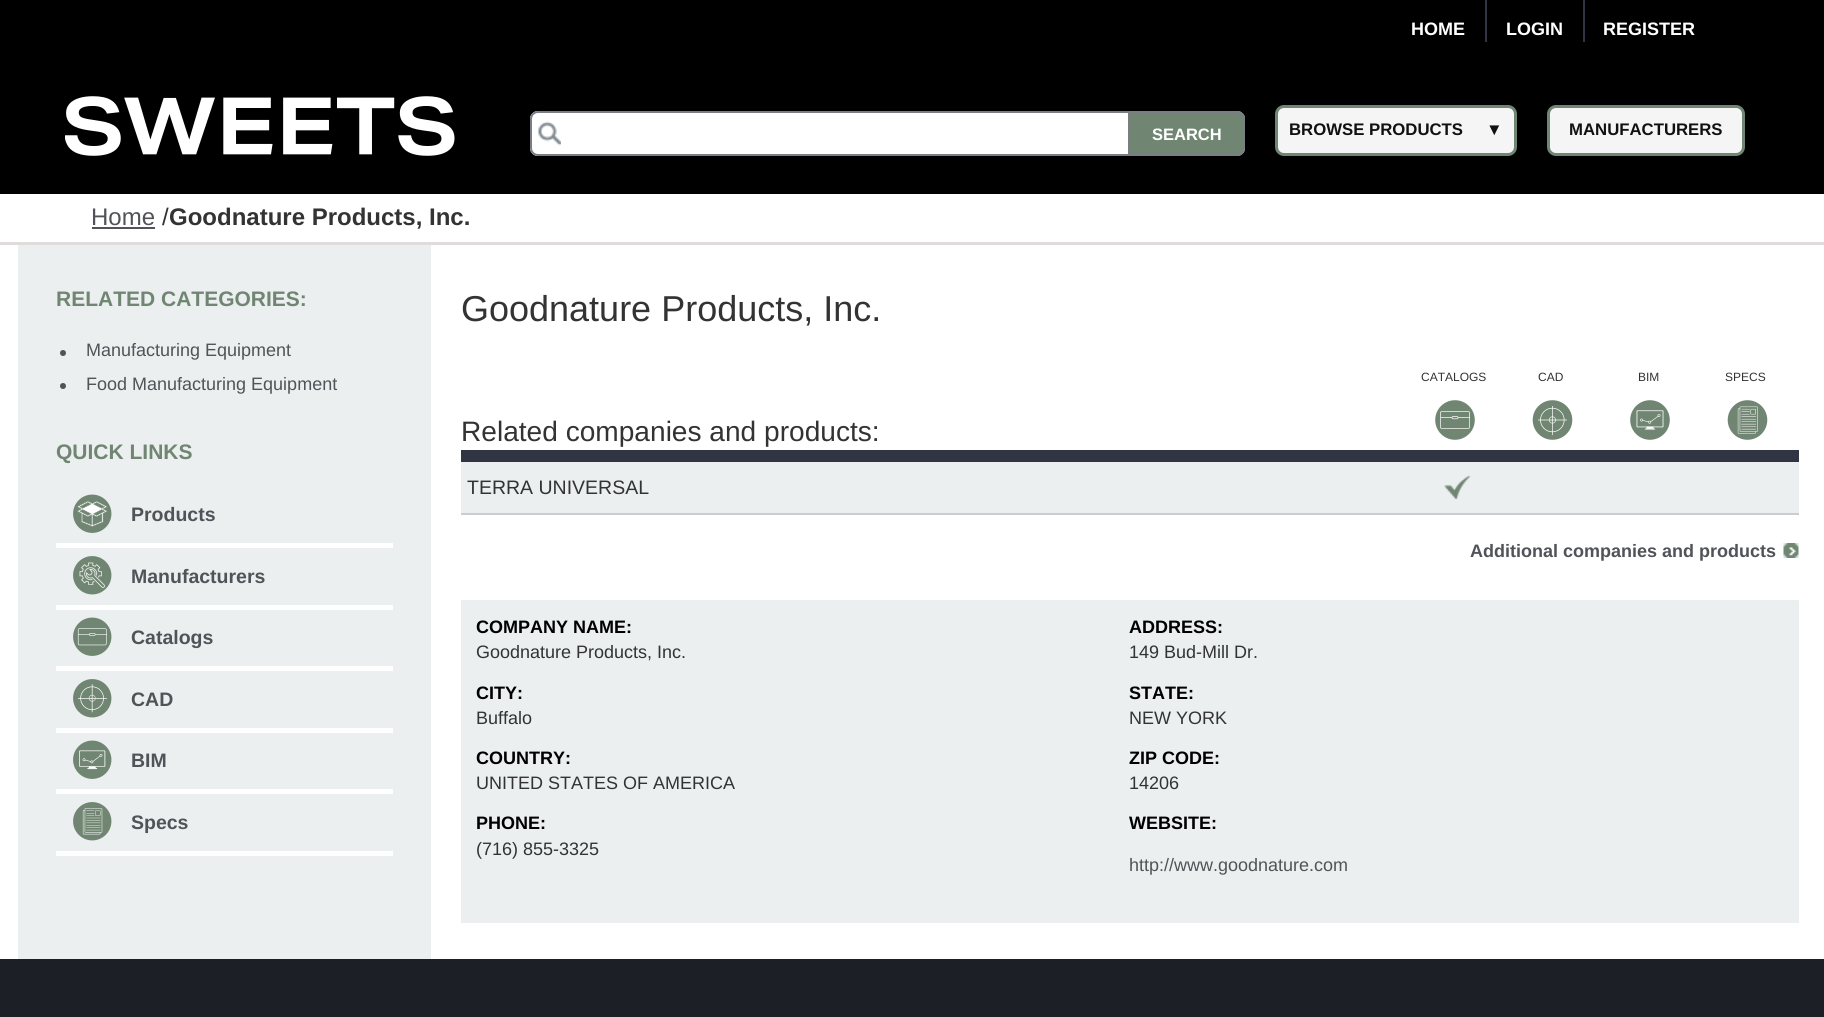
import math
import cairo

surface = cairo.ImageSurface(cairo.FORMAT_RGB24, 1824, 1017)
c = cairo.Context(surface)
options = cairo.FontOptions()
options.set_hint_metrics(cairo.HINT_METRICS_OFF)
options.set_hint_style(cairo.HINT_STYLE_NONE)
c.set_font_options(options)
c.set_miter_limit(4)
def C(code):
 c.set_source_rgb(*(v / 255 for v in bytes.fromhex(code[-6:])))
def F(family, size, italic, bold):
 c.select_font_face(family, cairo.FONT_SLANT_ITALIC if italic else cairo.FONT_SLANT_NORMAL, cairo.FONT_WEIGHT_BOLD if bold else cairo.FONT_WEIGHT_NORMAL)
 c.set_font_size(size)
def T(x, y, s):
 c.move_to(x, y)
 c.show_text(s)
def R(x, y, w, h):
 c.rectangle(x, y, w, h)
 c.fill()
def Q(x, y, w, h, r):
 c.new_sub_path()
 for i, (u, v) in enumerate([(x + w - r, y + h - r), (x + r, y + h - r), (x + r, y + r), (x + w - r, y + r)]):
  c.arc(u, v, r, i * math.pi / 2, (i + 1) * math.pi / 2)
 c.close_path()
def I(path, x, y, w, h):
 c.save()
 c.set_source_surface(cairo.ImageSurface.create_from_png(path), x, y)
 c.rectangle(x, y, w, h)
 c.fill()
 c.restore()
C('ffffff')
c.paint()
C('000000')
R(0,0,1824,194)
F('Liberation Sans',18,0,1)
C('ffffff')
T(1411,35,'HOME')
C('313442')
R(1485,0,2,42)
C('ffffff')
T(1506,35,'LOGIN')
C('313442')
R(1583,0,2,42)
C('ffffff')
T(1603,35,'REGISTER')
I('1.png',65,96,390,60)
Q(530,111,715,45,8)
c.fill()
I('2.png',538,121,23,25)
Q(531,112,713,43,7)
C('7a7d84')
c.stroke()
C('708672')
c.new_path()
c.move_to(1129,112)
c.line_to(1237,112)
c.curve_to(1241,112,1244,115,1244,119)
c.line_to(1244,148)
c.curve_to(1244,152,1241,155,1237,155)
c.line_to(1129,155)
c.close_path()
c.fill_preserve()
C('7a7d84')
c.stroke()
F('Liberation Sans',16.5,0,1)
C('ffffff')
T(1152,140,'SEARCH')
C('f5f5f5')
Q(1276.5,106.5,239,48,7.5)
c.fill_preserve()
C('708672')
c.set_line_width(3)
c.stroke()
F('Liberation Sans',16.75,0,1)
C('111111')
T(1289,135,'BROWSE PRODUCTS')
T(1486,135,'▼')
C('f5f5f5')
Q(1548.5,106.5,195,48,7.5)
c.fill_preserve()
C('708672')
c.stroke()
C('111111')
T(1569,135,'MANUFACTURERS')
C('e2dbdb')
R(0,242,1824,3)
F('Liberation Sans',24,0,0)
C('515358')
T(91,225,'Home')
R(92,227,63,2)
C('333333')
T(162,225,'/')
F('Liberation Sans',24,0,1)
T(169,225,'Goodnature Products, Inc.')
C('ebeff0')
R(18,245,413,714)
F('Liberation Sans',21,0,1)
C('708672')
T(56,306,'RELATED CATEGORIES:')
C('515358')
c.new_path()
c.arc(63,353,3,0,2 * math.pi)
c.fill()
F('Liberation Sans',18,0,0)
T(86,356,'Manufacturing Equipment')
c.new_path()
c.arc(63,386,3,0,2 * math.pi)
c.fill()
T(86,390,'Food Manufacturing Equipment')
F('Liberation Sans',21,0,1)
C('708672')
T(56,459,'QUICK LINKS')
I('3.png',73,494,39,39)
C('ffffff')
R(56,543,337,5)
F('Liberation Sans',19.5,0,1)
C('515358')
T(131,521,'Products')
I('4.png',73,556,39,39)
C('ffffff')
R(56,605,337,5)
C('515358')
T(131,583,'Manufacturers')
I('5.png',73,617,39,39)
C('ffffff')
R(56,666,337,5)
C('515358')
T(131,644,'Catalogs')
I('6.png',73,679,39,39)
C('ffffff')
R(56,728,337,5)
C('515358')
T(131,706,'CAD')
I('7.png',73,740,39,39)
C('ffffff')
R(56,789,337,5)
C('515358')
T(131,767,'BIM')
I('8.png',73,802,39,39)
C('ffffff')
R(56,851,337,5)
C('515358')
T(131,829,'Specs')
F('Liberation Sans',36,0,0)
C('333333')
T(461,321,'Goodnature Products, Inc.')
F('Liberation Sans',12,0,0)
T(1421,381,'CATALOGS')
I('9.png',1435,400,40,40)
T(1538,381,'CAD')
I('10.png',1532,400,41,40)
T(1638,381,'BIM')
I('11.png',1630,400,40,40)
T(1725,381,'SPECS')
I('12.png',1727,400,41,40)
C('313442')
R(461,450,1338,12)
F('Liberation Sans',28.1,0,0)
C('333333')
T(461,441,'Related companies and products:')
C('ebeff0')
R(461,462,1338,51)
C('cbccd0')
R(461,513,1338,2)
I('13.png',1444,475,27,25)
F('Liberation Sans',19.5,0,0)
C('333333')
T(467,494,'TERRA UNIVERSAL')
F('Liberation Sans',18,0,1)
C('515358')
T(1470,557,'Additional companies and products')
I('14.png',1783,543,16,15)
C('ebeff0')
R(461,600,1338,323)
C('000000')
T(476,633,'COMPANY NAME:')
F('Liberation Sans',18,0,0)
C('333333')
T(476,658,'Goodnature Products, Inc.')
F('Liberation Sans',18,0,1)
C('000000')
T(1129,633,'ADDRESS:')
F('Liberation Sans',18,0,0)
C('333333')
T(1129,658,'149 Bud-Mill Dr.')
F('Liberation Sans',18,0,1)
C('000000')
T(476,699,'CITY:')
F('Liberation Sans',18,0,0)
C('333333')
T(476,724,'Buffalo')
F('Liberation Sans',18,0,1)
C('000000')
T(1129,699,'STATE:')
F('Liberation Sans',18,0,0)
C('333333')
T(1129,724,'NEW YORK')
F('Liberation Sans',18,0,1)
C('000000')
T(476,764,'COUNTRY:')
F('Liberation Sans',18,0,0)
C('333333')
T(476,789,'UNITED STATES OF AMERICA')
F('Liberation Sans',18,0,1)
C('000000')
T(1129,764,'ZIP CODE:')
F('Liberation Sans',18,0,0)
C('333333')
T(1129,789,'14206')
F('Liberation Sans',18,0,1)
C('000000')
T(476,829,'PHONE:')
F('Liberation Sans',18,0,0)
C('333333')
T(476,855,'(716) 855-3325')
F('Liberation Sans',18,0,1)
C('000000')
T(1129,829,'WEBSITE:')
F('Liberation Sans',18,0,0)
C('515358')
T(1129,871,'http://www.goodnature.com')
C('1d1f27')
R(0,959,1824,58)
surface.write_to_png('o.png')
